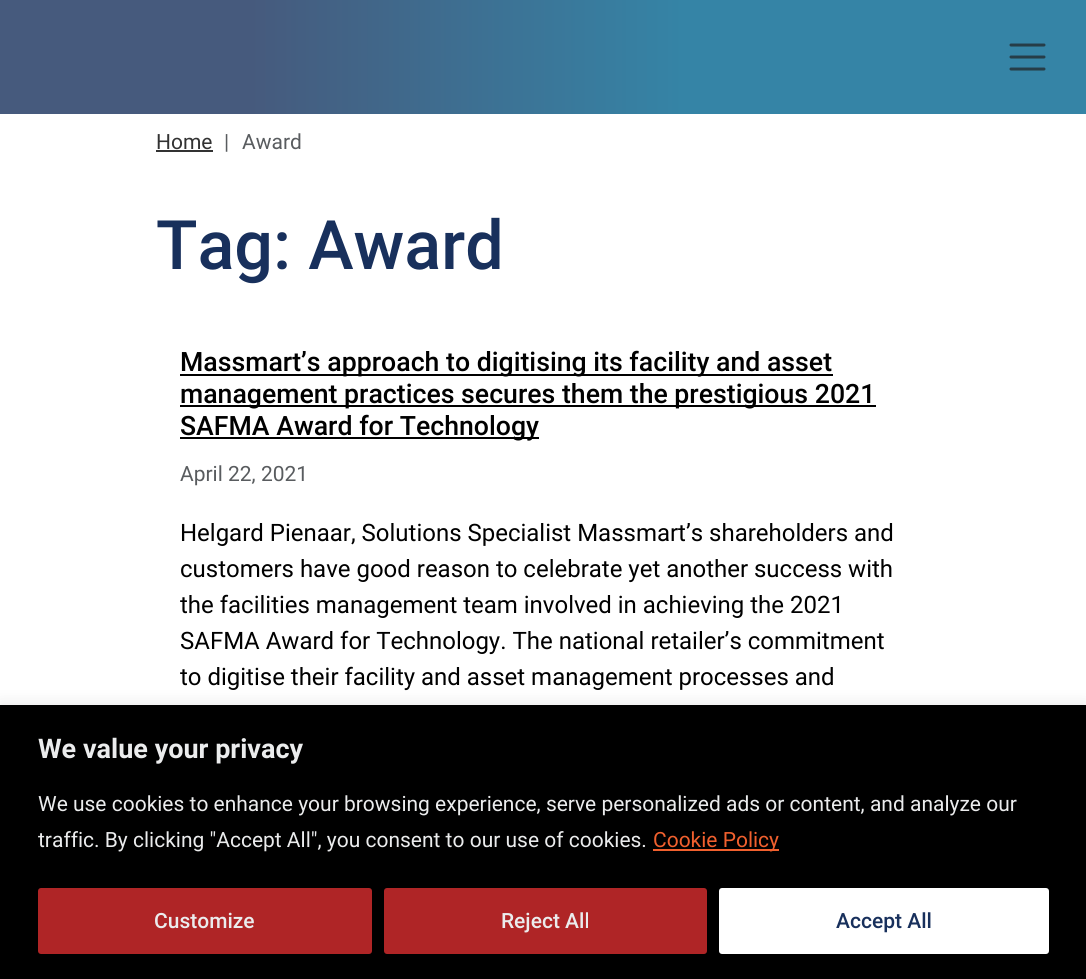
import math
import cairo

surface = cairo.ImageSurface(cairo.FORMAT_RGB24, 1086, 979)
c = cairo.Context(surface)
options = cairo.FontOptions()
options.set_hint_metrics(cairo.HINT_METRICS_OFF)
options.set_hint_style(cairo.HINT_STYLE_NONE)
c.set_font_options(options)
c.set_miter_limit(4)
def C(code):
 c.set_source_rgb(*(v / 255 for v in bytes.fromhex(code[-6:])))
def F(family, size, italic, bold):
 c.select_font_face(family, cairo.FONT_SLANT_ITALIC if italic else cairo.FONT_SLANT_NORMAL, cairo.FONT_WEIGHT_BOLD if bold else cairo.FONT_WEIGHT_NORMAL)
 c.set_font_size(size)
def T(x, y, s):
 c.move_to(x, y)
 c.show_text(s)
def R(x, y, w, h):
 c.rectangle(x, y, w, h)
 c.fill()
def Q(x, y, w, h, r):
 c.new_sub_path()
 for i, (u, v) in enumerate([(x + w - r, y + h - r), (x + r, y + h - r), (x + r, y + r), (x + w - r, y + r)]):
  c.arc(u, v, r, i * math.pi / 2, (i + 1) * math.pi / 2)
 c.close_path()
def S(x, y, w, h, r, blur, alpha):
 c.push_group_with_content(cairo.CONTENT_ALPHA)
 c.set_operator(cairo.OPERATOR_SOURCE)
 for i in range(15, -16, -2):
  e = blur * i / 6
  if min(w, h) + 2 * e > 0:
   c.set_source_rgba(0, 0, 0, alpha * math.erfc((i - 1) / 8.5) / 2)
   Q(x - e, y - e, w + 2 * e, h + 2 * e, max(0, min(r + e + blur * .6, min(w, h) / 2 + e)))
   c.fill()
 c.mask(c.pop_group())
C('ffffff')
c.paint()
gradient = cairo.LinearGradient(0,85,1086,85)
gradient.add_color_stop_rgba(0,0.275,0.353,0.49,1)
gradient.add_color_stop_rgba(.23,0.275,0.353,0.49,1)
gradient.add_color_stop_rgba(.63,0.208,0.518,0.651,1)
c.set_source(gradient)
R(0,0,1086,114)
c.new_path()
c.move_to(1011,45)
c.line_to(1044,45)
c.move_to(1011,57)
c.line_to(1044,57)
c.move_to(1011,69)
c.line_to(1044,69)
C('263d48')
c.set_line_width(3)
c.set_line_cap(cairo.LINE_CAP_ROUND)
c.stroke()
F('Roboto',21,0,0)
C('323232')
T(156,149,'Home')
R(156,150,57,2)
C('595c5f')
T(224,149,'|')
T(242,149,'Award')
F('Roboto Medium',68.25,0,0)
C('18305c')
T(156,269,'Tag: Award')
C('000000')
R(180,374,653,2)
F('Roboto Medium',26.65,0,0)
T(180,371,'Massmart’s approach to digitising its facility and asset')
R(180,405,696,2)
T(180,403,'management practices secures them the prestigious 2021')
R(180,437,359,2)
T(180,435,'SAFMA Award for Technology')
F('Roboto',21,0,0)
C('595c5f')
T(180,481,'April 22, 2021')
F('Roboto',24,0,0)
C('000000')
T(180,541,'Helgard Pienaar, Solutions Specialist Massmart’s shareholders and')
T(180,577,'customers have good reason to celebrate yet another success with')
T(180,613,'the facilities management team involved in achieving the 2021')
T(180,649,'SAFMA Award for Technology. The national retailer’s commitment')
T(180,685,'to digitise their facility and asset management processes and')
C('acabab')
S(0,704,1086,274,0,7.5,.3)
C('000000')
R(0,705,1086,274)
F('Roboto',27,0,1)
C('ebeced')
T(38,758,'We value your privacy')
F('Roboto',21,0,0)
T(38,811,'We use cookies to enhance your browsing experience, serve personalized ads or content, and analyze our')
T(38,847,'traffic. By clicking "Accept All", you consent to our use of cookies.')
C('f1602e')
R(653,849,126,2)
T(653,847,'Cookie Policy')
C('af2526')
Q(39.5,889.5,331,63,1.5)
c.fill_preserve()
c.set_line_cap(cairo.LINE_CAP_BUTT)
c.stroke()
F('Roboto Medium',21,0,0)
C('ebeced')
T(154,928,'Customize')
C('af2526')
Q(385.5,889.5,320,63,1.5)
c.fill_preserve()
c.stroke()
C('ebeced')
T(501,928,'Reject All')
C('ffffff')
Q(720.5,889.5,327,63,1.5)
c.fill_preserve()
c.stroke()
C('18305c')
T(836,928,'Accept All')
surface.write_to_png('o.png')
